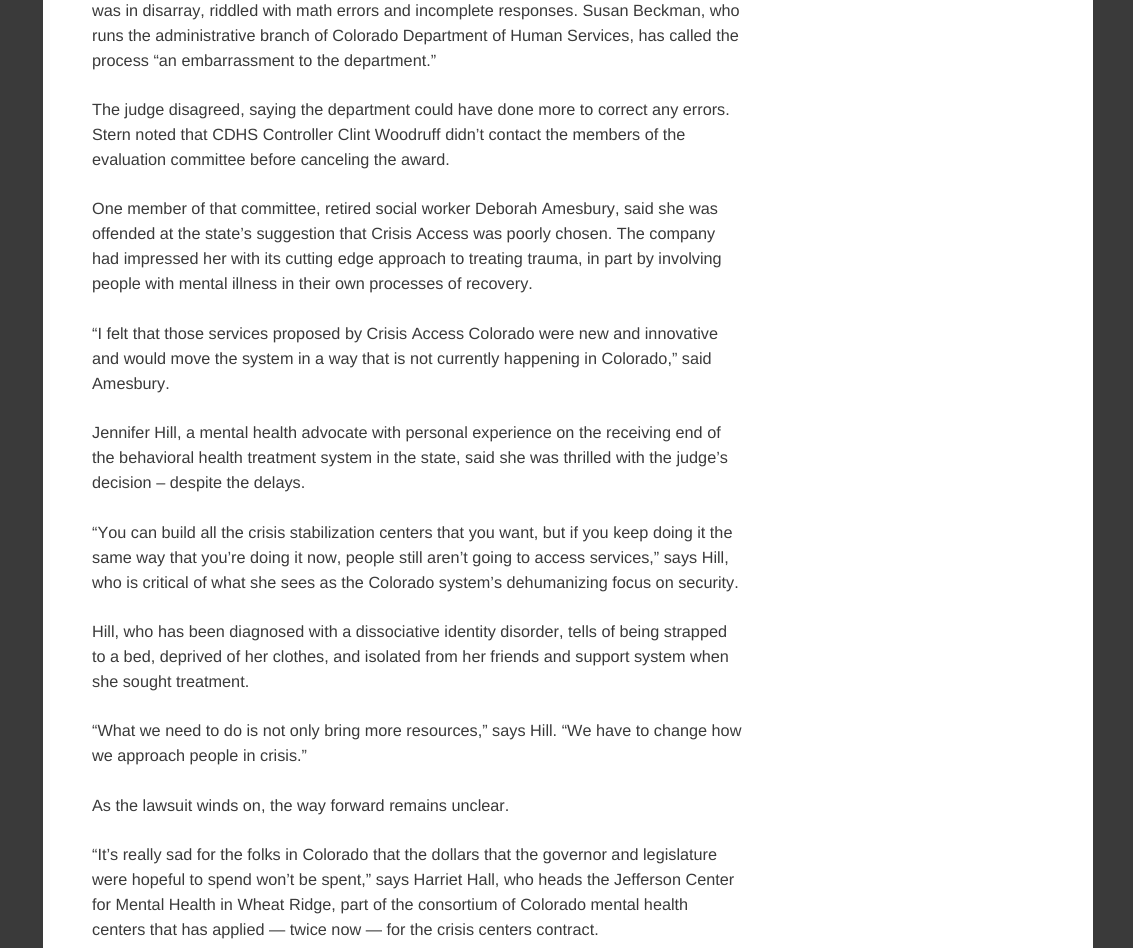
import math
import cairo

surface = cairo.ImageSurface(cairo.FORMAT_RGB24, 1133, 948)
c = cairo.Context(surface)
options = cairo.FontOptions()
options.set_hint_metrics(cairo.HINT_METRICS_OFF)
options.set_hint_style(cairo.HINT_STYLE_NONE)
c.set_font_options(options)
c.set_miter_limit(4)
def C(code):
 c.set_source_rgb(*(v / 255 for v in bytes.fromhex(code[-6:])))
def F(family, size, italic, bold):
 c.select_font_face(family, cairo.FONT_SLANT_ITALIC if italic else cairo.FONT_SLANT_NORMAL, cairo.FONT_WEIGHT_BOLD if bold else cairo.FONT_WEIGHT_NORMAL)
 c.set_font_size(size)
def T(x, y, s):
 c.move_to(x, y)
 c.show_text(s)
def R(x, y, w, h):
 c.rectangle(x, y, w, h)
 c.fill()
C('3a3a3a')
c.paint()
C('ffffff')
R(43,0,1050,948)
F('Liberation Sans',16.25,0,0)
C('3a3a3a')
T(92,16,'was in disarray, riddled with math errors and incomplete responses. Susan Beckman, who')
T(92,41,'runs the administrative branch of Colorado Department of Human Services, has called the')
T(92,66,'process “an embarrassment to the department.”')
T(92,115,'The judge disagreed, saying the department could have done more to correct any errors.')
T(92,140,'Stern noted that CDHS Controller Clint Woodruff didn’t contact the members of the')
T(92,165,'evaluation committee before canceling the award.')
T(92,214,'One member of that committee, retired social worker Deborah Amesbury, said she was')
T(92,239,'offended at the state’s suggestion that Crisis Access was poorly chosen. The company')
T(92,264,'had impressed her with its cutting edge approach to treating trauma, in part by involving')
T(92,289,'people with mental illness in their own processes of recovery.')
T(92,339,'“I felt that those services proposed by Crisis Access Colorado were new and innovative')
T(92,364,'and would move the system in a way that is not currently happening in Colorado,” said')
T(92,389,'Amesbury.')
T(92,438,'Jennifer Hill, a mental health advocate with personal experience on the receiving end of')
T(92,463,'the behavioral health treatment system in the state, said she was thrilled with the judge’s')
T(92,488,'decision – despite the delays.')
T(92,538,'“You can build all the crisis stabilization centers that you want, but if you keep doing it the')
T(92,563,'same way that you’re doing it now, people still aren’t going to access services,” says Hill,')
T(92,588,'who is critical of what she sees as the Colorado system’s dehumanizing focus on security.')
T(92,637,'Hill, who has been diagnosed with a dissociative identity disorder, tells of being strapped')
T(92,662,'to a bed, deprived of her clothes, and isolated from her friends and support system when')
T(92,687,'she sought treatment.')
T(92,736,'“What we need to do is not only bring more resources,” says Hill. “We have to change how')
T(92,761,'we approach people in crisis.”')
T(92,811,'As the lawsuit winds on, the way forward remains unclear.')
T(92,860,'“It’s really sad for the folks in Colorado that the dollars that the governor and legislature')
T(92,885,'were hopeful to spend won’t be spent,” says Harriet Hall, who heads the Jefferson Center')
T(92,910,'for Mental Health in Wheat Ridge, part of the consortium of Colorado mental health')
T(92,935,'centers that has applied — twice now — for the crisis centers contract.')
surface.write_to_png('o.png')
